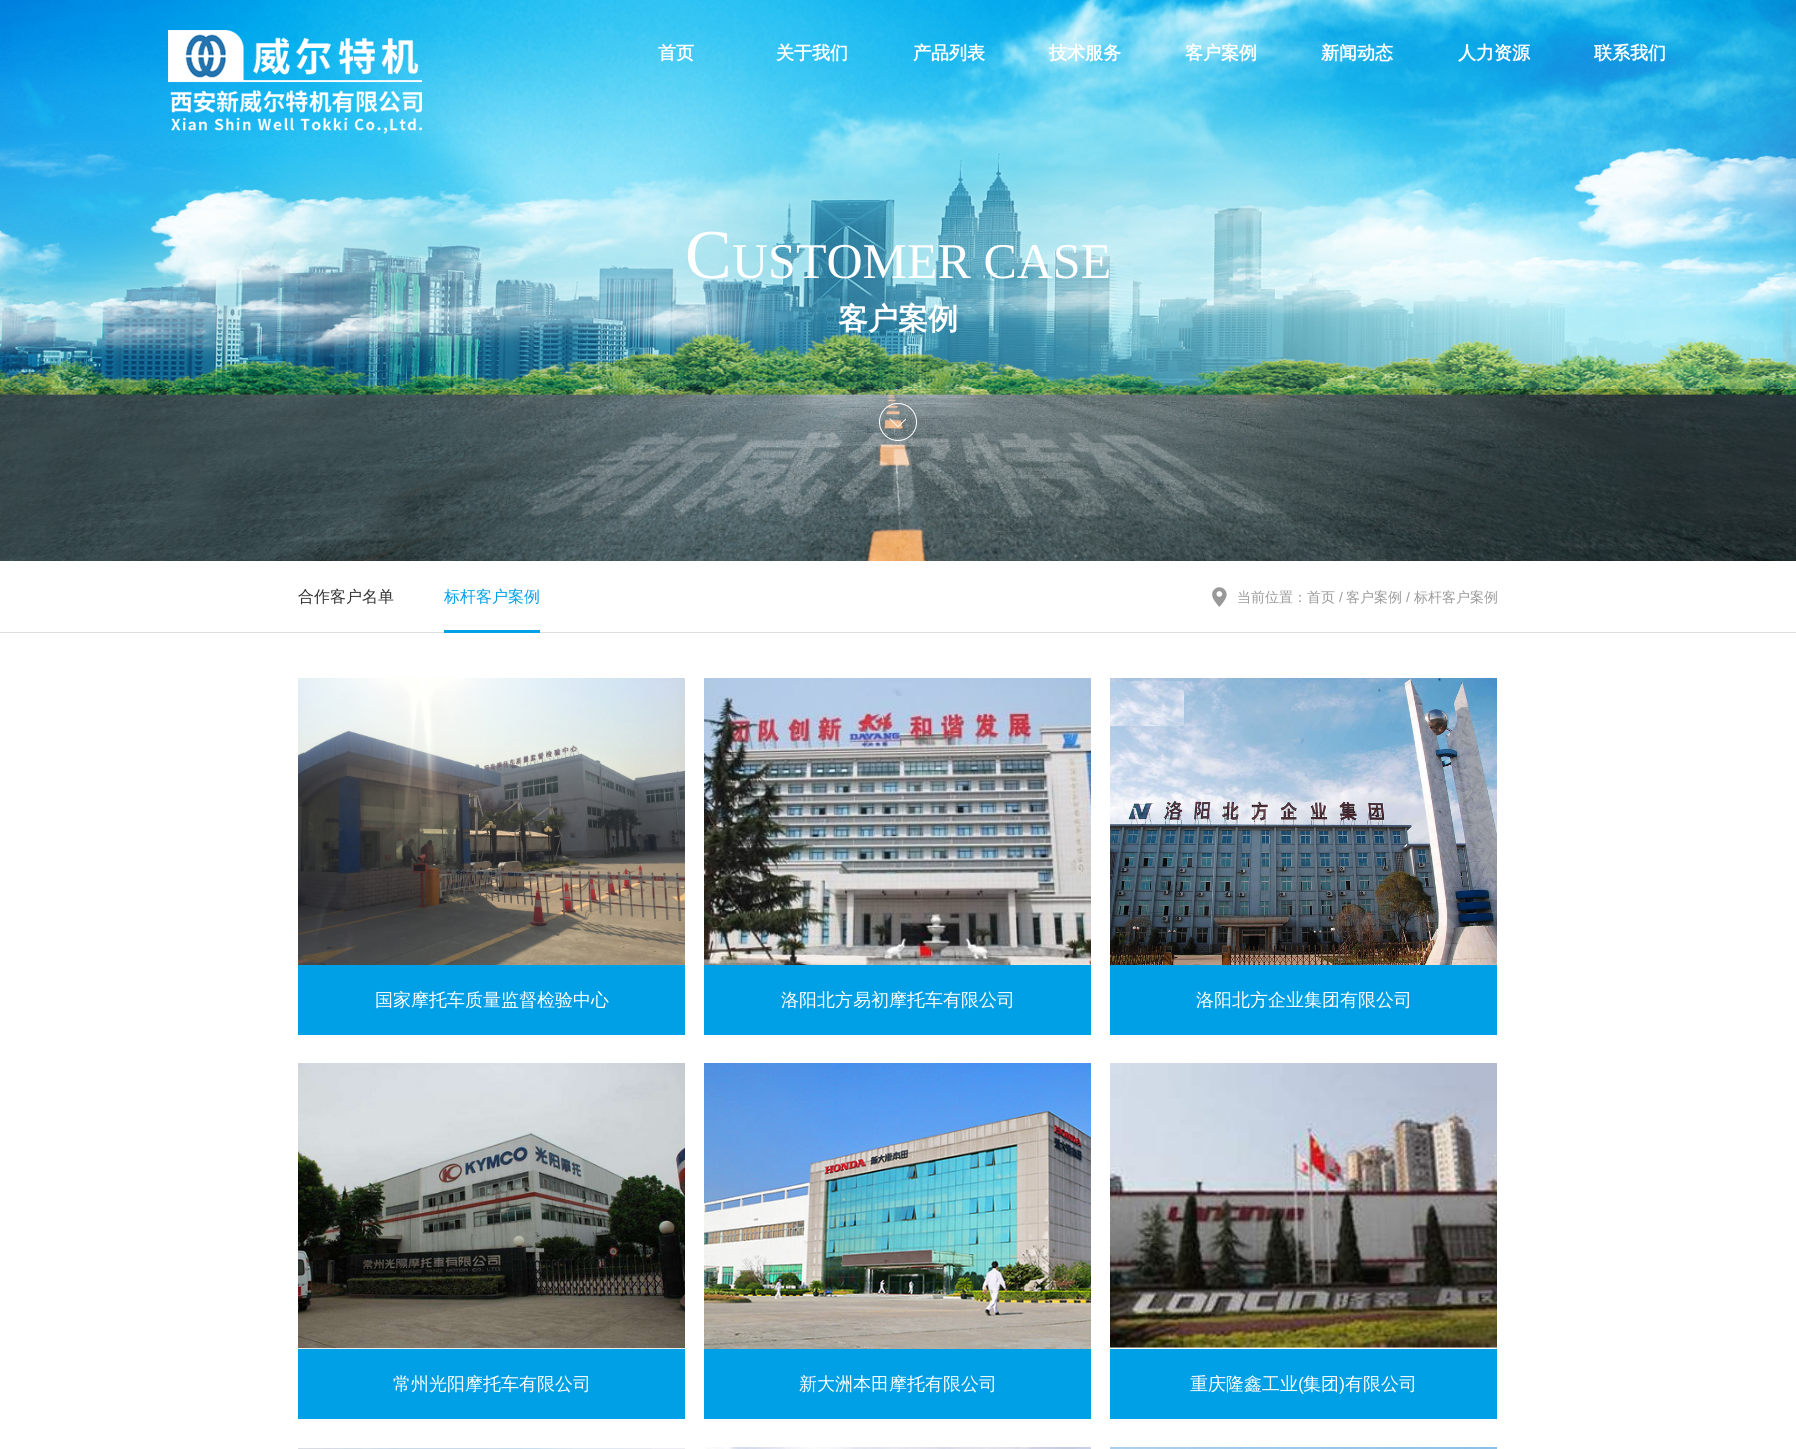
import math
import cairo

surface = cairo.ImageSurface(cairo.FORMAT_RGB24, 1796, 1449)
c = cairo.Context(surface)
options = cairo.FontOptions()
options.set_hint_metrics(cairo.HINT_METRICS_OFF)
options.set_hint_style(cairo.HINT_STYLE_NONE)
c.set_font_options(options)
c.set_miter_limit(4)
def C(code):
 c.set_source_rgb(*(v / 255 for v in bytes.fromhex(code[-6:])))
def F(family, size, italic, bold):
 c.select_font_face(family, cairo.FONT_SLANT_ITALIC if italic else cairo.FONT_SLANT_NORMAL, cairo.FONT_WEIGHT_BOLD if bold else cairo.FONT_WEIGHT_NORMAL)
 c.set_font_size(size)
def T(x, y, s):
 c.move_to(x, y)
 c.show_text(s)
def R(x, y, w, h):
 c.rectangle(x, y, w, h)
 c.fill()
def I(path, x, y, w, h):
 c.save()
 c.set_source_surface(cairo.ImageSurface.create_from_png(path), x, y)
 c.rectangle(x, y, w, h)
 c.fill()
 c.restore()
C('ffffff')
c.paint()
I('2.png',0,0,1796,561)
I('1.png',168,30,254,104)
F('WenQuanYi Zen Hei',18,0,1)
C('ffffff')
T(658,59,'首页')
T(776,59,'关于我们')
T(913,59,'产品列表')
T(1049,59,'技术服务')
T(1185,59,'客户案例')
T(1321,59,'新闻动态')
T(1458,59,'人力资源')
T(1594,59,'联系我们')
F('Liberation Serif',70,0,0)
T(685,278,'C')
F('Liberation Serif',50,0,0)
T(732,278,'USTOMER CASE')
F('WenQuanYi Zen Hei',30,0,1)
T(838,329,'客户案例')
I('3.png',879,403,38,38)
C('dfdfdf')
R(0,632,1796,1)
F('WenQuanYi Zen Hei Medium',16,0,0)
C('333333')
T(298,602,'合作客户名单')
C('00a0e7')
T(444,602,'标杆客户案例')
R(444,630,96,3)
I('4.png',1212,587,15,20)
F('WenQuanYi Zen Hei Medium',14,0,0)
C('999999')
T(1237,602,'当前位置：首页')
F('Liberation Sans',14,0,0)
T(1339,602,'/')
F('WenQuanYi Zen Hei Medium',14,0,0)
T(1346,602,'客户案例')
F('Liberation Sans',14,0,0)
T(1406,602,'/')
F('WenQuanYi Zen Hei Medium',14,0,0)
T(1414,602,'标杆客户案例')
I('5.png',298,678,387,287)
C('00a0e7')
R(298,965,387,70)
F('WenQuanYi Zen Hei Medium',18,0,0)
C('ffffff')
T(375,1006,'国家摩托车质量监督检验中心')
I('6.png',704,678,387,287)
C('00a0e7')
R(704,965,387,70)
C('ffffff')
T(781,1006,'洛阳北方易初摩托车有限公司')
I('7.png',1110,678,387,287)
C('00a0e7')
R(1110,965,387,70)
C('ffffff')
T(1196,1006,'洛阳北方企业集团有限公司')
I('8.png',298,1063,387,286)
C('00a0e7')
R(298,1349,387,70)
C('ffffff')
T(393,1390,'常州光阳摩托车有限公司')
I('9.png',704,1063,387,286)
C('00a0e7')
R(704,1349,387,70)
C('ffffff')
T(799,1390,'新大洲本田摩托有限公司')
I('10.png',1110,1063,387,285)
C('00a0e7')
R(1110,1349,387,70)
C('ffffff')
T(1190,1390,'重庆隆鑫工业')
F('Liberation Sans',18,0,0)
T(1298,1390,'(')
F('WenQuanYi Zen Hei Medium',18,0,0)
T(1303,1390,'集团')
F('Liberation Sans',18,0,0)
T(1339,1390,')')
F('WenQuanYi Zen Hei Medium',18,0,0)
T(1345,1390,'有限公司')
I('11.png',298,1448,387,1)
I('12.png',705,1447,386,2)
I('13.png',1110,1447,387,2)
surface.write_to_png('o.png')
